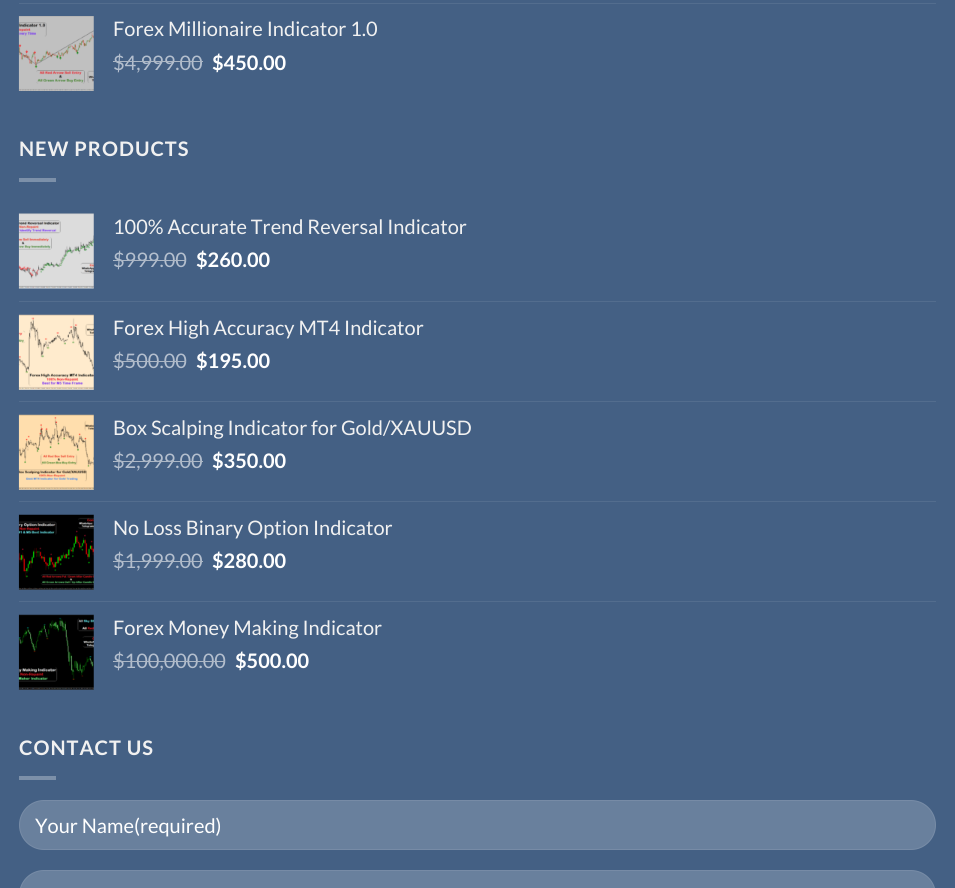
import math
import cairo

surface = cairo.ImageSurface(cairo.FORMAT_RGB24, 955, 888)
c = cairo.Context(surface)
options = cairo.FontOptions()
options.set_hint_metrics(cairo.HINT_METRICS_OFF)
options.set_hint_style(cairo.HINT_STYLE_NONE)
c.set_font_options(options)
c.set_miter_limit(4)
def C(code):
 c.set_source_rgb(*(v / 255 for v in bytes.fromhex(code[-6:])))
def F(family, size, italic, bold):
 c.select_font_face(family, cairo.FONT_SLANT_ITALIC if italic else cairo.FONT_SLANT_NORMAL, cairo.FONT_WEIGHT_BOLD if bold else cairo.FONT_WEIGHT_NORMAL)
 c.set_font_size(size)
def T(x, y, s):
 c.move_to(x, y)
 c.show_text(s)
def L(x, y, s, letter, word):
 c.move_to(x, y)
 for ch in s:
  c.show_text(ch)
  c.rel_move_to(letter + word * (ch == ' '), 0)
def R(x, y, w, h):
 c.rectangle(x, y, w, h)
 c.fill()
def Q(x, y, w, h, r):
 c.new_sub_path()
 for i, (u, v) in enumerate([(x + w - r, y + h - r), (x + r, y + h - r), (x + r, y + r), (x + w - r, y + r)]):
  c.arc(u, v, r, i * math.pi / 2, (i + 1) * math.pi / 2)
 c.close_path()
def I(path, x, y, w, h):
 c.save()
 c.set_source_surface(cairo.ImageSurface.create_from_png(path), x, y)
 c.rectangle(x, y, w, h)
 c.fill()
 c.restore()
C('446084')
c.paint()
C('536d8e')
R(19,3,917,1)
I('1.png',18,16,76,75)
F('Lato',20,0,0)
C('f1f1f1')
T(113,36,'Forex Millionaire Indicator 1.0')
C('b4bfce')
T(113,70,'$4,999.00')
C('acb7c5')
R(113,61,90,1)
F('Lato',20,0,1)
C('ffffff')
T(212,70,'$450.00')
C('f1f1f1')
L(19,156,'NEW PRODUCTS',1,0)
C('7c90a9')
R(19,178,37,4)
I('2.png',18,213,76,76)
F('Lato',20,0,0)
C('f1f1f1')
T(113,234,'100% Accurate Trend Reversal Indicator')
C('b4bfce')
T(113,267,'$999.00')
C('acb7c5')
R(113,260,73,1)
F('Lato',20,0,1)
C('ffffff')
T(196,267,'$260.00')
C('536d8e')
R(19,301,917,1)
I('3.png',18,314,76,76)
F('Lato',20,0,0)
C('f1f1f1')
T(113,335,'Forex High Accuracy MT4 Indicator')
C('b4bfce')
T(113,368,'$500.00')
C('acb7c5')
R(113,361,73,1)
F('Lato',20,0,1)
C('ffffff')
T(196,368,'$195.00')
C('536d8e')
R(19,401,917,1)
I('4.png',18,414,76,76)
F('Lato',20,0,0)
C('f1f1f1')
T(113,435,'Box Scalping Indicator for Gold/XAUUSD')
C('b4bfce')
T(113,468,'$2,999.00')
C('acb7c5')
R(113,461,90,1)
F('Lato',20,0,1)
C('ffffff')
T(212,468,'$350.00')
C('536d8e')
R(19,501,917,1)
I('5.png',18,514,76,76)
F('Lato',20,0,0)
C('f1f1f1')
T(113,535,'No Loss Binary Option Indicator')
C('b4bfce')
T(113,568,'$1,999.00')
C('acb7c5')
R(113,561,90,1)
F('Lato',20,0,1)
C('ffffff')
T(212,568,'$280.00')
C('536d8e')
R(19,601,917,1)
I('6.png',18,614,76,76)
F('Lato',20,0,0)
C('f1f1f1')
T(113,635,'Forex Money Making Indicator')
C('b4bfce')
T(113,668,'$100,000.00')
C('acb7c5')
R(113,661,112,1)
F('Lato',20,0,1)
C('ffffff')
T(235,668,'$500.00')
C('f1f1f1')
L(19,755,'CONTACT US',1,0)
C('7c90a9')
R(19,776,37,4)
C('69809d')
Q(19,800,917,50,25)
c.fill()
Q(19.5,800.5,916,49,24.5)
c.set_source_rgba(1,1,1,0.09)
c.set_line_width(1)
c.stroke()
F('Lato',20,0,0)
C('ffffff')
T(35,833,'Your Name(required)')
C('69809d')
Q(19,870,917,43,25)
c.fill()
Q(19.5,870.5,916,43,24.5)
c.set_source_rgba(1,1,1,0.09)
c.stroke()
surface.write_to_png('o.png')
